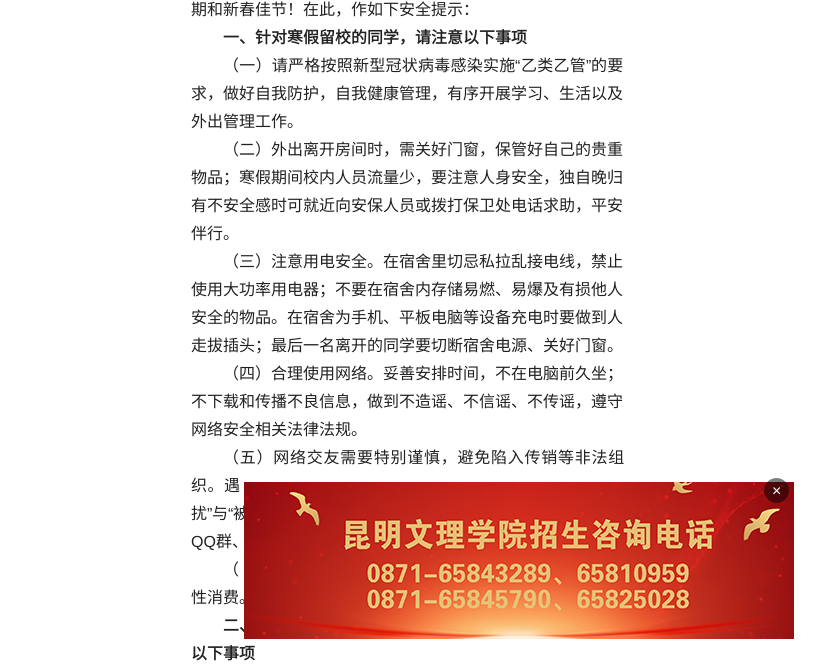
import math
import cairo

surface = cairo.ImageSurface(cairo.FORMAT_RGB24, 814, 668)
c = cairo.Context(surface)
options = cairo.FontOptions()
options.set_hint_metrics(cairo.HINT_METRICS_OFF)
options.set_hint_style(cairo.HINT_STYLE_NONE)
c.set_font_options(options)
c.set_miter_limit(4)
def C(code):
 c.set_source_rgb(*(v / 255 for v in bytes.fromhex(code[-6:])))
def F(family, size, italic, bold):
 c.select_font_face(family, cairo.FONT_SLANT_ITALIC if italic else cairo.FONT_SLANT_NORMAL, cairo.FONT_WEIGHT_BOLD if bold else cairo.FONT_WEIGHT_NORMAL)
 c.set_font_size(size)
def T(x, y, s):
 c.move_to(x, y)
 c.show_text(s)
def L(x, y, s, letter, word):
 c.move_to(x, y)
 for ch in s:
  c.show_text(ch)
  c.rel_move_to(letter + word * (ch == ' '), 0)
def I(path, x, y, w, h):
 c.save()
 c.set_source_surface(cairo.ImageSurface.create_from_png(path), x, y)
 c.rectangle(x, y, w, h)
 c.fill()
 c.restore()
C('ffffff')
c.paint()
F('Noto Sans CJK SC',16,0,0)
C('212121')
T(191,15,'期和新春佳节！在此，作如下安全提示：')
F('Noto Sans CJK SC',16,0,1)
T(223,43,'一、针对寒假留校的同学，请注意以下事项')
F('Noto Sans CJK SC',16,0,0)
L(223,71,'（一）请严格按照新型冠状病毒感染实施',.25,0)
F('Liberation Sans',16,0,0)
L(515,71,'“',.25,0)
F('Noto Sans CJK SC',16,0,0)
L(521,71,'乙类乙管',.25,0)
F('Liberation Sans',16,0,0)
L(586,71,'”',.25,0)
F('Noto Sans CJK SC',16,0,0)
L(591,71,'的要',.25,0)
T(191,99,'求，做好自我防护，自我健康管理，有序开展学习、生活以及')
T(191,127,'外出管理工作。')
T(223,155,'（二）外出离开房间时，需关好门窗，保管好自己的贵重')
T(191,183,'物品；寒假期间校内人员流量少，要注意人身安全，独自晚归')
T(191,211,'有不安全感时可就近向安保人员或拨打保卫处电话求助，平安')
T(191,239,'伴行。')
T(223,267,'（三）注意用电安全。在宿舍里切忌私拉乱接电线，禁止')
T(191,295,'使用大功率用电器；不要在宿舍内存储易燃、易爆及有损他人')
T(191,323,'安全的物品。在宿舍为手机、平板电脑等设备充电时要做到人')
T(191,351,'走拔插头；最后一名离开的同学要切断宿舍电源、关好门窗。')
T(223,379,'（四）合理使用网络。妥善安排时间，不在电脑前久坐；')
T(191,407,'不下载和传播不良信息，做到不造谣、不信谣、不传谣，遵守')
T(191,435,'网络安全相关法律法规。')
L(223,463,'（五）网络交友需要特别谨慎，避免陷入传销等非法组',.75,0)
L(191,491,'织。遇',.5,0)
T(191,519,'扰')
F('Liberation Sans',16,0,0)
T(207,519,'”')
F('Noto Sans CJK SC',16,0,0)
T(212,519,'与')
F('Liberation Sans',16,0,0)
T(228,519,'“')
F('Noto Sans CJK SC',16,0,0)
T(233,519,'被')
F('Liberation Sans',16,0,0)
T(191,547,'QQ')
F('Noto Sans CJK SC',16,0,0)
T(216,547,'群、')
T(223,575,'（')
T(191,603,'性消费。')
F('Noto Sans CJK SC',16,0,1)
T(223,631,'二、')
T(191,659,'以下事项')
I('1.png',244,482,550,157)
c.set_source_rgba(0,0,0,0.5)
c.arc(776.5,490.5,12.5,0,2 * math.pi)
c.fill()
F('Liberation Sans',16,0,0)
C('ffffff')
T(772,496,'×')
surface.write_to_png('o.png')
